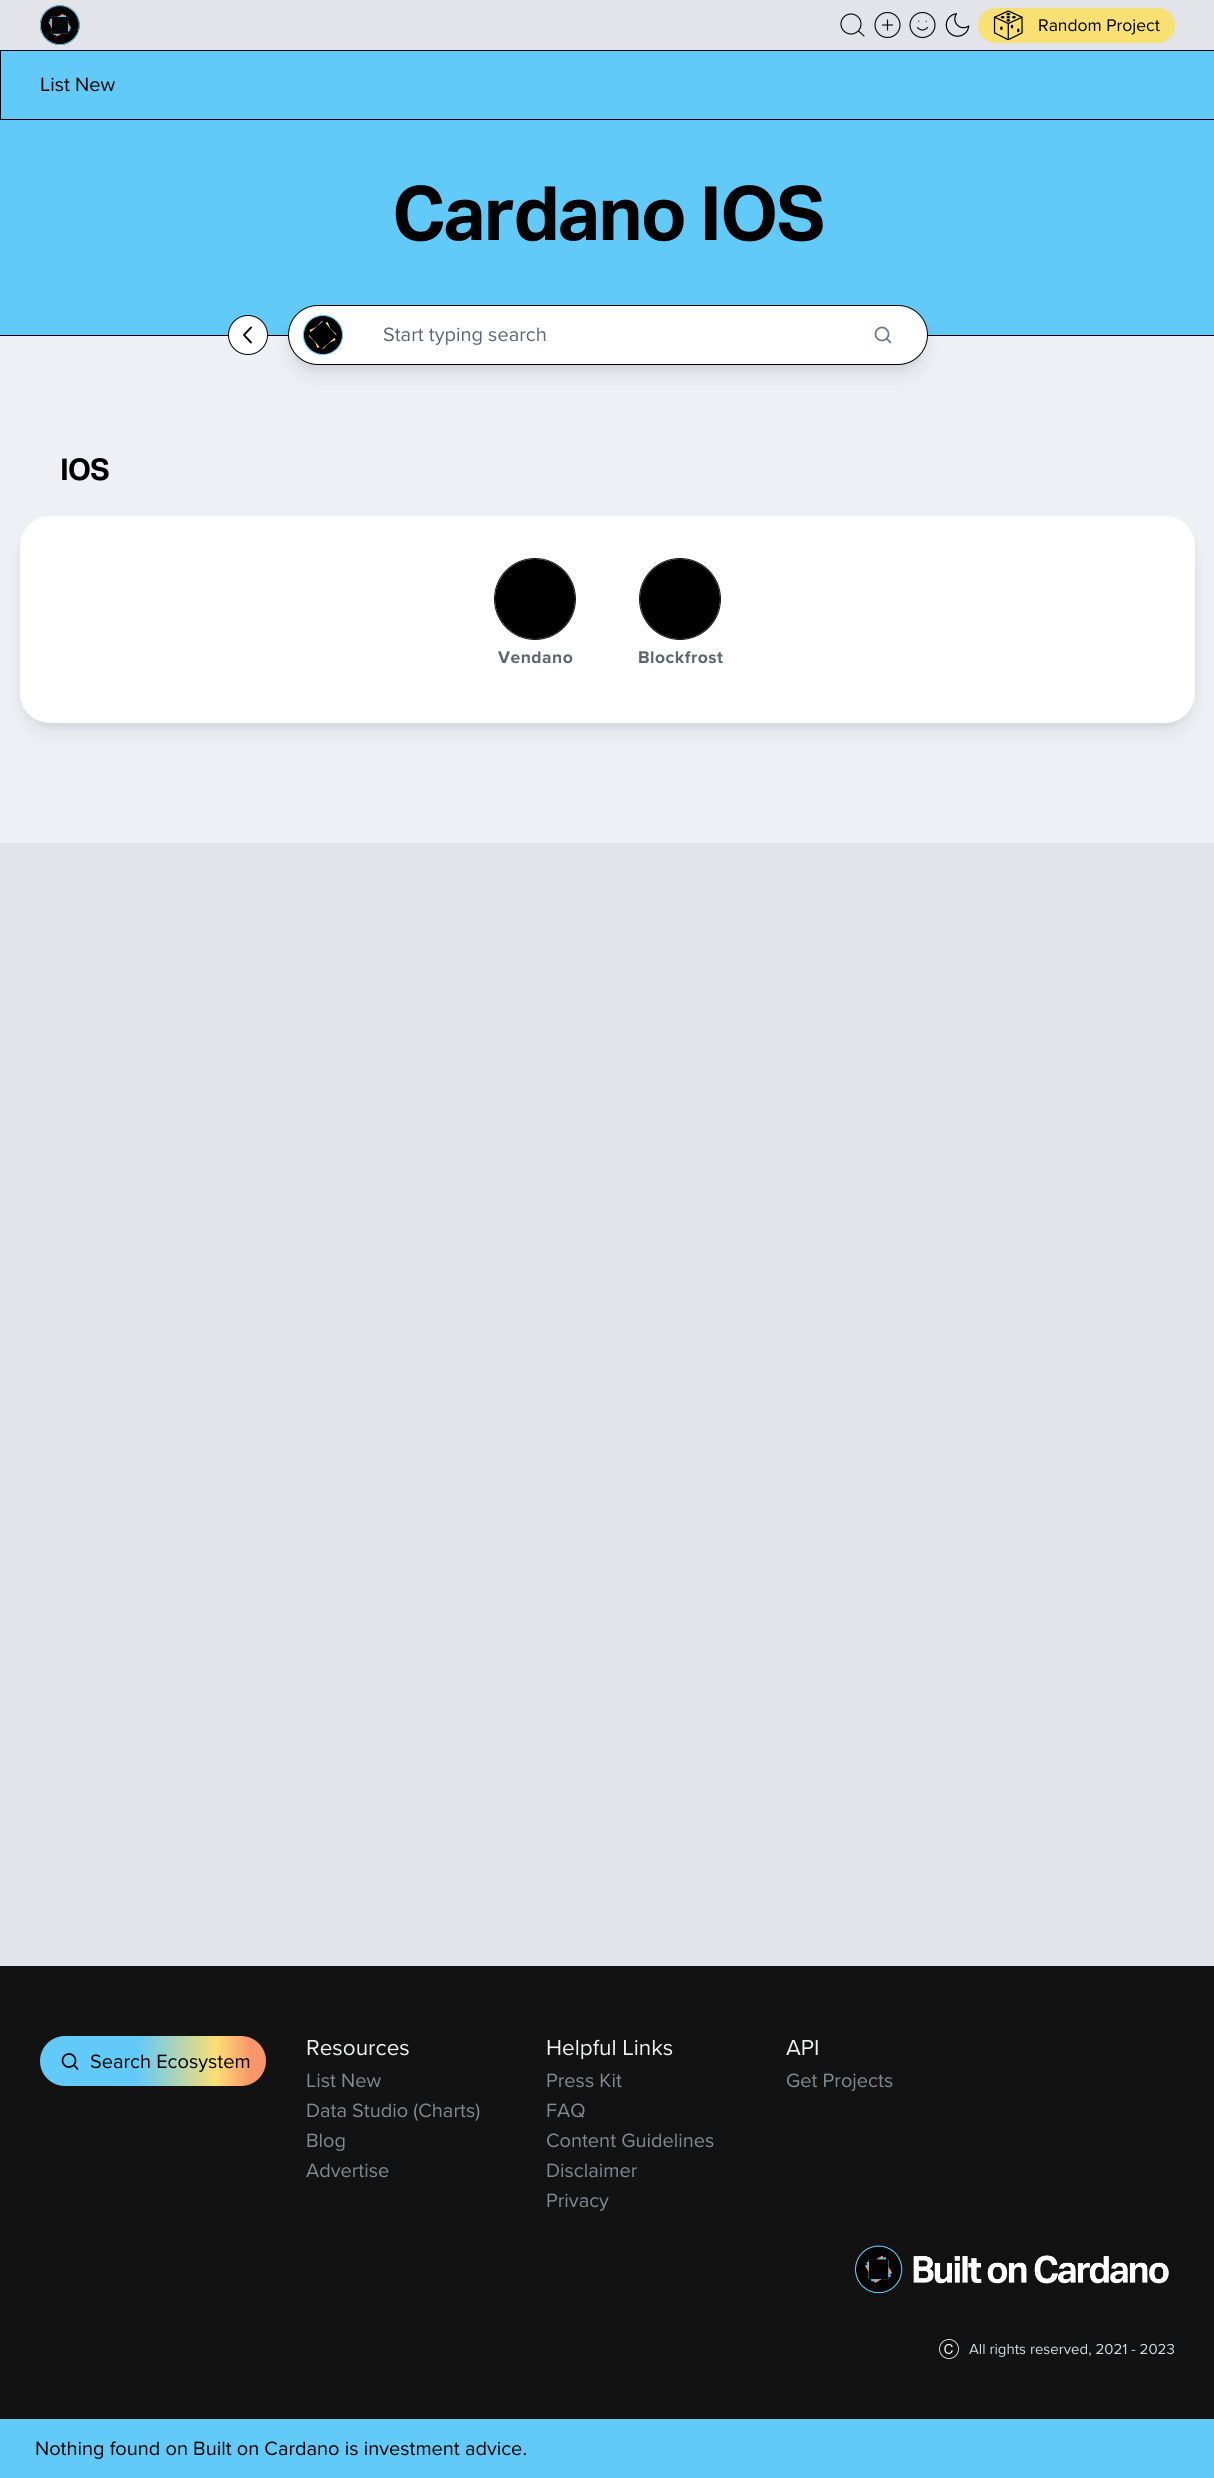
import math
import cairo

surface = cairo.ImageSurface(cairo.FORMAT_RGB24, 1214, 2478)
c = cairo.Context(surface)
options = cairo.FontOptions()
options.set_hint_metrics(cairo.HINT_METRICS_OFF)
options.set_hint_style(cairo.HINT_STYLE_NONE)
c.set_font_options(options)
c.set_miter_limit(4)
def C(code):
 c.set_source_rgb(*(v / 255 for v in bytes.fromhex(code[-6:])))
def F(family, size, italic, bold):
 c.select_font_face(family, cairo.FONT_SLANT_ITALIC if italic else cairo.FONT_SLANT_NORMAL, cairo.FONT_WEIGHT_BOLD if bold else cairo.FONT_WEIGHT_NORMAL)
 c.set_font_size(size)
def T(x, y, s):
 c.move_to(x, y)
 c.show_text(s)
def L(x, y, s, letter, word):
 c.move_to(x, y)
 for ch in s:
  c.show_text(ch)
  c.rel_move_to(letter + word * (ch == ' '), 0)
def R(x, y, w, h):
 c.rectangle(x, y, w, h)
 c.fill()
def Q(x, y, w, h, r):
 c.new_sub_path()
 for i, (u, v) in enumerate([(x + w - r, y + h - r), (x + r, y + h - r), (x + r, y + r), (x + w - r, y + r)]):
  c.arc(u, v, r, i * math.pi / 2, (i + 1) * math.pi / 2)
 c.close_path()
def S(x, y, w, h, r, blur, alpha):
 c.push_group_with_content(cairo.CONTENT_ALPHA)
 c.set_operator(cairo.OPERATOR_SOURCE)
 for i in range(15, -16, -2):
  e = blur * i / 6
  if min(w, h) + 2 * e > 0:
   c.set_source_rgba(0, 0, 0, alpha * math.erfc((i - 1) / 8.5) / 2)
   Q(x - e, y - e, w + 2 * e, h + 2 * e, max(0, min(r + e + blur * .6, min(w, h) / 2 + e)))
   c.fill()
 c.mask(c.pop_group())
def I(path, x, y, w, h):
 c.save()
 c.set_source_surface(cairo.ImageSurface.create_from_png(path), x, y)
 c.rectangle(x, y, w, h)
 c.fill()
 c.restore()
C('e2e4e9')
c.paint()
I('1.png',40,5,40,40)
c.arc(851,24,10,0,2 * math.pi)
C('121212')
c.set_line_width(1.2)
c.stroke()
c.new_path()
c.move_to(864,36)
c.line_to(858.5,31)
c.set_line_cap(cairo.LINE_CAP_ROUND)
c.set_line_join(cairo.LINE_JOIN_ROUND)
c.stroke()
c.arc(887.5,25,12.5,0,2 * math.pi)
c.set_line_cap(cairo.LINE_CAP_BUTT)
c.set_line_join(cairo.LINE_JOIN_MITER)
c.stroke()
c.new_path()
c.move_to(887.5,20)
c.line_to(887.5,30)
c.move_to(882.5,25)
c.line_to(892.5,25)
c.set_line_cap(cairo.LINE_CAP_ROUND)
c.set_line_join(cairo.LINE_JOIN_ROUND)
c.stroke()
I('2.png',909,11,27,28)
I('3.png',945,13,25,24)
C('f9e073')
Q(978,8,197,35,17.5)
c.fill()
I('4.png',993,10,30,30)
F('Proxima Nova',17.5,0,0)
C('000000')
T(1038,31,'Random Project')
C('61caf8')
R(0,51,1214,284)
c.rectangle(.5,50.5,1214,69)
C('000000')
c.set_line_width(1)
c.set_line_cap(cairo.LINE_CAP_BUTT)
c.set_line_join(cairo.LINE_JOIN_MITER)
c.stroke()
F('Proxima Nova',20,0,0)
T(40,91,'List New')
F('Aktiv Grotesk',75,0,1)
L(392,240,'Cardano IOS',-1.9,0)
C('eef0f5')
R(0,336,1214,507)
C('000000')
R(0,335,1214,1)
C('ffffff')
c.new_path()
c.arc(248,335,19.5,0,2 * math.pi)
c.fill_preserve()
C('000000')
c.stroke()
c.new_path()
c.move_to(251,342.5)
c.line_to(244,335)
c.line_to(251,327.5)
c.set_line_width(1.9)
c.set_line_cap(cairo.LINE_CAP_ROUND)
c.set_line_join(cairo.LINE_JOIN_ROUND)
c.stroke()
C('121212')
S(290,313,635,55,27.5,4,.05)
S(291,321,633,53,26.5,9.5,.1)
C('ffffff')
Q(288.5,305.5,639,59,29.5)
c.fill_preserve()
C('000000')
c.set_line_width(1)
c.set_line_cap(cairo.LINE_CAP_BUTT)
c.set_line_join(cairo.LINE_JOIN_MITER)
c.stroke()
c.arc(323,335,19.5,0,2 * math.pi)
c.fill_preserve()
C('61caf8')
c.stroke()
C('f9e073')
c.new_path()
c.move_to(309.5,330)
c.line_to(327.5,322)
c.line_to(335.5,340)
c.line_to(317.5,348)
c.close_path()
c.fill()
C('f8966b')
c.new_path()
c.move_to(308.5,336)
c.line_to(321.5,321)
c.line_to(336.5,334)
c.line_to(323.5,349)
c.close_path()
c.fill()
C('61caf8')
c.new_path()
c.move_to(308.5,335)
c.line_to(322.5,321)
c.line_to(336.5,335)
c.line_to(322.5,349)
c.close_path()
c.fill()
C('000000')
c.new_path()
c.move_to(308.5,334)
c.line_to(323.5,321)
c.line_to(336.5,336)
c.line_to(321.5,349)
c.close_path()
c.fill()
c.new_path()
c.move_to(309.5,334)
c.line_to(323.5,322)
c.line_to(335.5,336)
c.line_to(321.5,348)
c.close_path()
c.set_line_width(1.3)
c.stroke()
F('Proxima Nova',20,0,0)
C('5c6770')
T(383,341,'Start typing search')
c.new_path()
c.arc(882,334,6.5,0,2 * math.pi)
C('6b7680')
c.set_line_width(1.7)
c.stroke()
c.new_path()
c.move_to(890.5,342.5)
c.line_to(887,339)
c.set_line_cap(cairo.LINE_CAP_ROUND)
c.set_line_join(cairo.LINE_JOIN_ROUND)
c.stroke()
F('Aktiv Grotesk',30,0,1)
C('000000')
L(60,480,'IOS',-1,0)
C('121212')
S(23,524,1170,201,28,4,.05)
S(24,533,1167,198,26,9.5,.1)
C('ffffff')
Q(20,516,1175,207,30)
c.fill()
c.arc(535,599,40.5,0,2 * math.pi)
C('121212')
c.set_line_width(1)
c.set_line_cap(cairo.LINE_CAP_BUTT)
c.set_line_join(cairo.LINE_JOIN_MITER)
c.stroke()
C('000000')
c.arc(535,599,40,0,2 * math.pi)
c.fill()
F('Proxima Nova',17.5,0,1)
C('5c6770')
L(498,663,'Vendano',.5,0)
c.new_path()
c.arc(680,599,40.5,0,2 * math.pi)
C('121212')
c.stroke()
C('000000')
c.arc(680,599,40,0,2 * math.pi)
c.fill()
C('5c6770')
L(638,663,'Blockfrost',.5,0)
C('121212')
R(0,1966,1214,453)
gradient = cairo.LinearGradient(266,2061,40,2061)
gradient.add_color_stop_rgba(0,0.973,0.588,0.42,1)
gradient.add_color_stop_rgba(.07,0.973,0.588,0.42,1)
gradient.add_color_stop_rgba(.22,0.976,0.875,0.451,1)
gradient.add_color_stop_rgba(.57,0.38,0.792,0.973,1)
gradient.add_color_stop_rgba(.98,0.38,0.792,0.973,1)
c.set_source(gradient)
Q(40,2036,226,50,25)
c.fill()
c.arc(69,2060.5,6.5,0,2 * math.pi)
C('000000')
c.set_line_width(1.7)
c.stroke()
c.new_path()
c.move_to(77.5,2069)
c.line_to(74,2065)
c.set_line_cap(cairo.LINE_CAP_ROUND)
c.set_line_join(cairo.LINE_JOIN_ROUND)
c.stroke()
F('Proxima Nova',20,0,0)
T(90,2068,'Search Ecosystem')
F('Proxima Nova',22.5,0,0)
C('f0f2f4')
T(306,2055,'Resources')
F('Proxima Nova',20,0,0)
C('808a93')
T(306,2087,'List New')
T(306,2117,'Data Studio (Charts)')
T(306,2147,'Blog')
T(306,2177,'Advertise')
F('Proxima Nova',22.5,0,0)
C('f0f2f4')
T(546,2055,'Helpful Links')
F('Proxima Nova',20,0,0)
C('808a93')
T(546,2087,'Press Kit')
T(546,2117,'FAQ')
T(546,2147,'Content Guidelines')
T(546,2177,'Disclaimer')
T(546,2207,'Privacy')
F('Proxima Nova',22.5,0,0)
C('f0f2f4')
T(786,2055,'API')
F('Proxima Nova',20,0,0)
C('808a93')
T(786,2087,'Get Projects')
I('5.png',855,2245,314,48)
I('6.png',939,2339,20,20)
F('Proxima Nova',15,0,0)
C('d6dce1')
T(969,2354,'All rights reserved, 2021 - 2023')
C('61caf8')
R(0,2419,1214,59)
F('Proxima Nova',20,0,0)
C('000000')
T(35,2455,'Nothing found on Built on Cardano is investment advice.')
surface.write_to_png('o.png')
